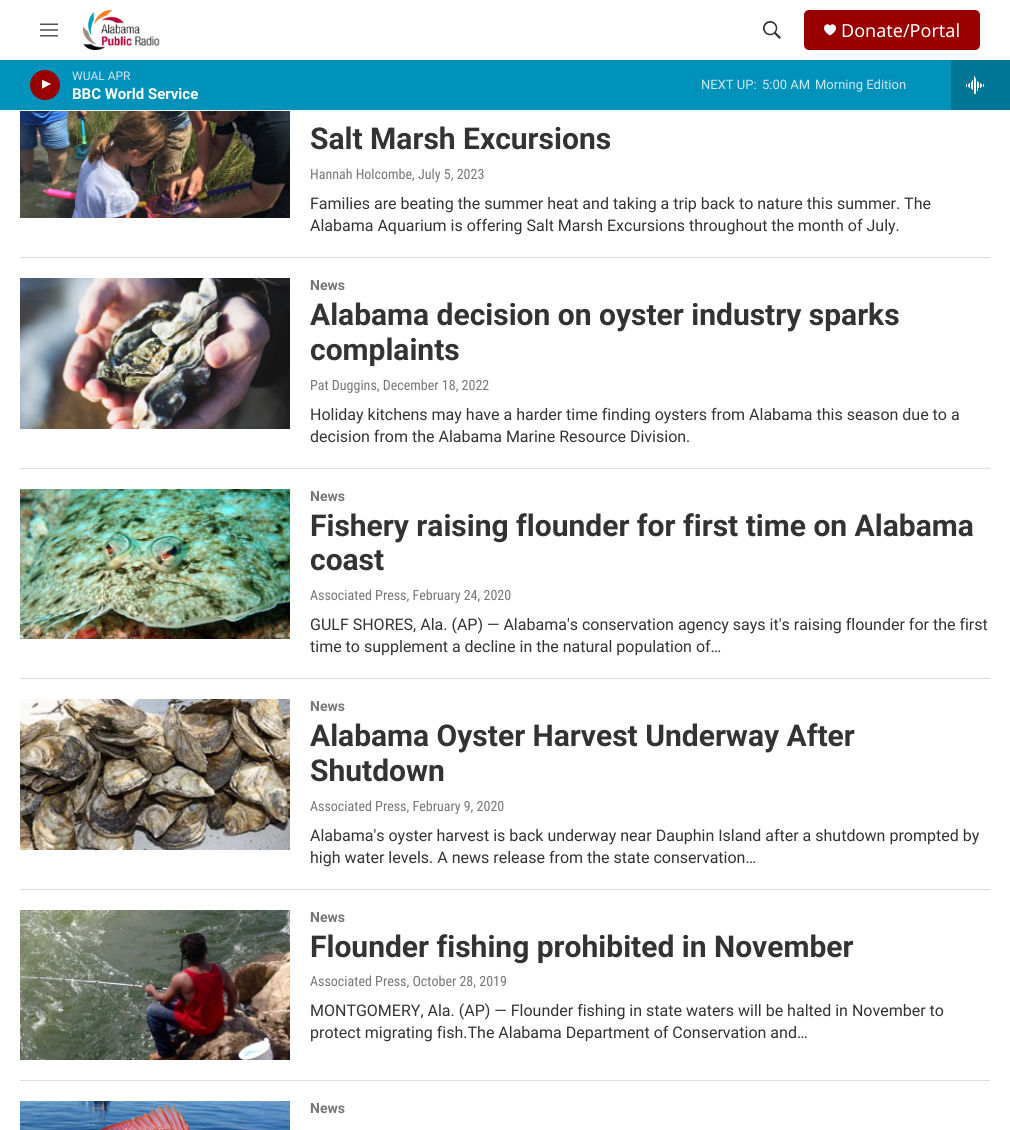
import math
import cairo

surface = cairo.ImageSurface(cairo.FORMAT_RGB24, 1010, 1130)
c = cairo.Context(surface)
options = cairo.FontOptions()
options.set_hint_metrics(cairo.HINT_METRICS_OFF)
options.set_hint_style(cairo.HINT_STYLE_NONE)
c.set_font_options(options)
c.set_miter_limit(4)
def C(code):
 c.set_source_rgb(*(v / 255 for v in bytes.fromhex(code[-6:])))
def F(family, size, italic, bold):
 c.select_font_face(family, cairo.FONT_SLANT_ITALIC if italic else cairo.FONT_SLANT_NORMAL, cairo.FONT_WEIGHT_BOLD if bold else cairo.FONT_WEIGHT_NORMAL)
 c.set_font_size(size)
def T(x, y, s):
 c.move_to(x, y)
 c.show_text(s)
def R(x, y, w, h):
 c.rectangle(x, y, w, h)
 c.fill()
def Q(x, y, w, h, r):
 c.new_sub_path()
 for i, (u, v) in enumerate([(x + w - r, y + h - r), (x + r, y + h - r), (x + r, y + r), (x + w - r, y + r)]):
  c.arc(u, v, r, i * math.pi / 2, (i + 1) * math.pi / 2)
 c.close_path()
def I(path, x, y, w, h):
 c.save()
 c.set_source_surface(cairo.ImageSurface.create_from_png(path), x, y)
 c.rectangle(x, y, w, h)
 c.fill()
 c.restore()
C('ffffff')
c.paint()
C('f5f5f5')
R(0,110,1010,1)
I('1.png',40,23,18,14)
I('2.png',83,10,77,40)
I('3.png',763,21,18,18)
C('990000')
Q(804,10,176,40,5)
c.fill()
C('ffffff')
c.new_path()
c.move_to(830,26)
c.curve_to(828,21,817.5,28,830,35.5)
c.curve_to(842.5,28,832,21,830,26)
c.close_path()
c.fill()
F('Noto Sans',18,0,0)
T(841,37,'Donate/Portal')
C('0092ba')
R(0,60,951,50)
C('990000')
c.new_path()
c.arc(45,85,15,0,2 * math.pi)
c.fill()
c.save()
c.rectangle(42,78,12,15)
c.clip()
C('ffffff')
c.new_path()
c.move_to(41.5,79.5)
c.line_to(51,84)
c.line_to(41.5,89)
c.close_path()
c.fill()
c.restore()
F('Roboto',12,0,0)
C('cce9f1')
T(72,80,'WUAL APR')
F('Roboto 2',15,0,1)
C('ffffff')
T(72,99,'BBC World Service')
F('Roboto',13,0,0)
C('cce9f1')
T(701,89,'NEXT UP:')
T(762,89,'5:00 AM')
T(815,89,'Morning Edition')
C('007595')
R(951,60,59,50)
I('4.png',966,76,18,18)
C('dcdcdc')
R(20,257,970,1)
I('5.png',20,111,270,107)
F('Roboto',30,0,1)
C('333333')
T(310,149,'Salt Marsh Excursions')
F('Roboto Condensed',14,0,0)
C('767676')
T(310,179,'Hannah Holcombe, July 5, 2023')
F('Roboto',16,0,0)
C('333333')
T(310,209,'Families are beating the summer heat and taking a trip back to nature this summer. The')
T(310,231,'Alabama Aquarium is offering Salt Marsh Excursions throughout the month of July.')
C('dcdcdc')
R(20,468,970,1)
I('6.png',20,278,270,151)
F('Roboto',14,0,1)
C('767676')
T(310,290,'News')
F('Roboto',30,0,1)
C('333333')
T(310,325,'Alabama decision on oyster industry sparks')
T(310,360,'complaints')
F('Roboto Condensed',14,0,0)
C('767676')
T(310,390,'Pat Duggins, December 18, 2022')
F('Roboto',16,0,0)
C('333333')
T(310,420,'Holiday kitchens may have a harder time finding oysters from Alabama this season due to a')
T(310,442,'decision from the Alabama Marine Resource Division.')
C('dcdcdc')
R(20,678,970,1)
I('7.png',20,489,270,150)
F('Roboto',14,0,1)
C('767676')
T(310,501,'News')
F('Roboto',30,0,1)
C('333333')
T(310,536,'Fishery raising flounder for first time on Alabama')
T(310,570,'coast')
F('Roboto Condensed',14,0,0)
C('767676')
T(310,600,'Associated Press, February 24, 2020')
F('Roboto',16,0,0)
C('333333')
T(310,630,'GULF SHORES, Ala. (AP) — Alabama\'s conservation agency says it\'s raising flounder for the first')
T(310,652,'time to supplement a decline in the natural population of…')
C('dcdcdc')
R(20,889,970,1)
I('8.png',20,699,270,151)
F('Roboto',14,0,1)
C('767676')
T(310,711,'News')
F('Roboto',30,0,1)
C('333333')
T(310,746,'Alabama Oyster Harvest Underway After')
T(310,781,'Shutdown')
F('Roboto Condensed',14,0,0)
C('767676')
T(310,811,'Associated Press, February 9, 2020')
F('Roboto',16,0,0)
C('333333')
T(310,841,'Alabama\'s oyster harvest is back underway near Dauphin Island after a shutdown prompted by')
T(310,863,'high water levels. A news release from the state conservation…')
C('dcdcdc')
R(20,1080,970,1)
I('9.png',20,910,270,150)
F('Roboto',14,0,1)
C('767676')
T(310,922,'News')
F('Roboto',30,0,1)
C('333333')
T(310,957,'Flounder fishing prohibited in November')
F('Roboto Condensed',14,0,0)
C('767676')
T(310,986,'Associated Press, October 28, 2019')
F('Roboto',16,0,0)
C('333333')
T(310,1016,'MONTGOMERY, Ala. (AP) — Flounder fishing in state waters will be halted in November to')
T(310,1038,'protect migrating fish.The Alabama Department of Conservation and…')
I('10.png',20,1101,270,29)
F('Roboto',14,0,1)
C('767676')
T(310,1113,'News')
surface.write_to_png('o.png')
